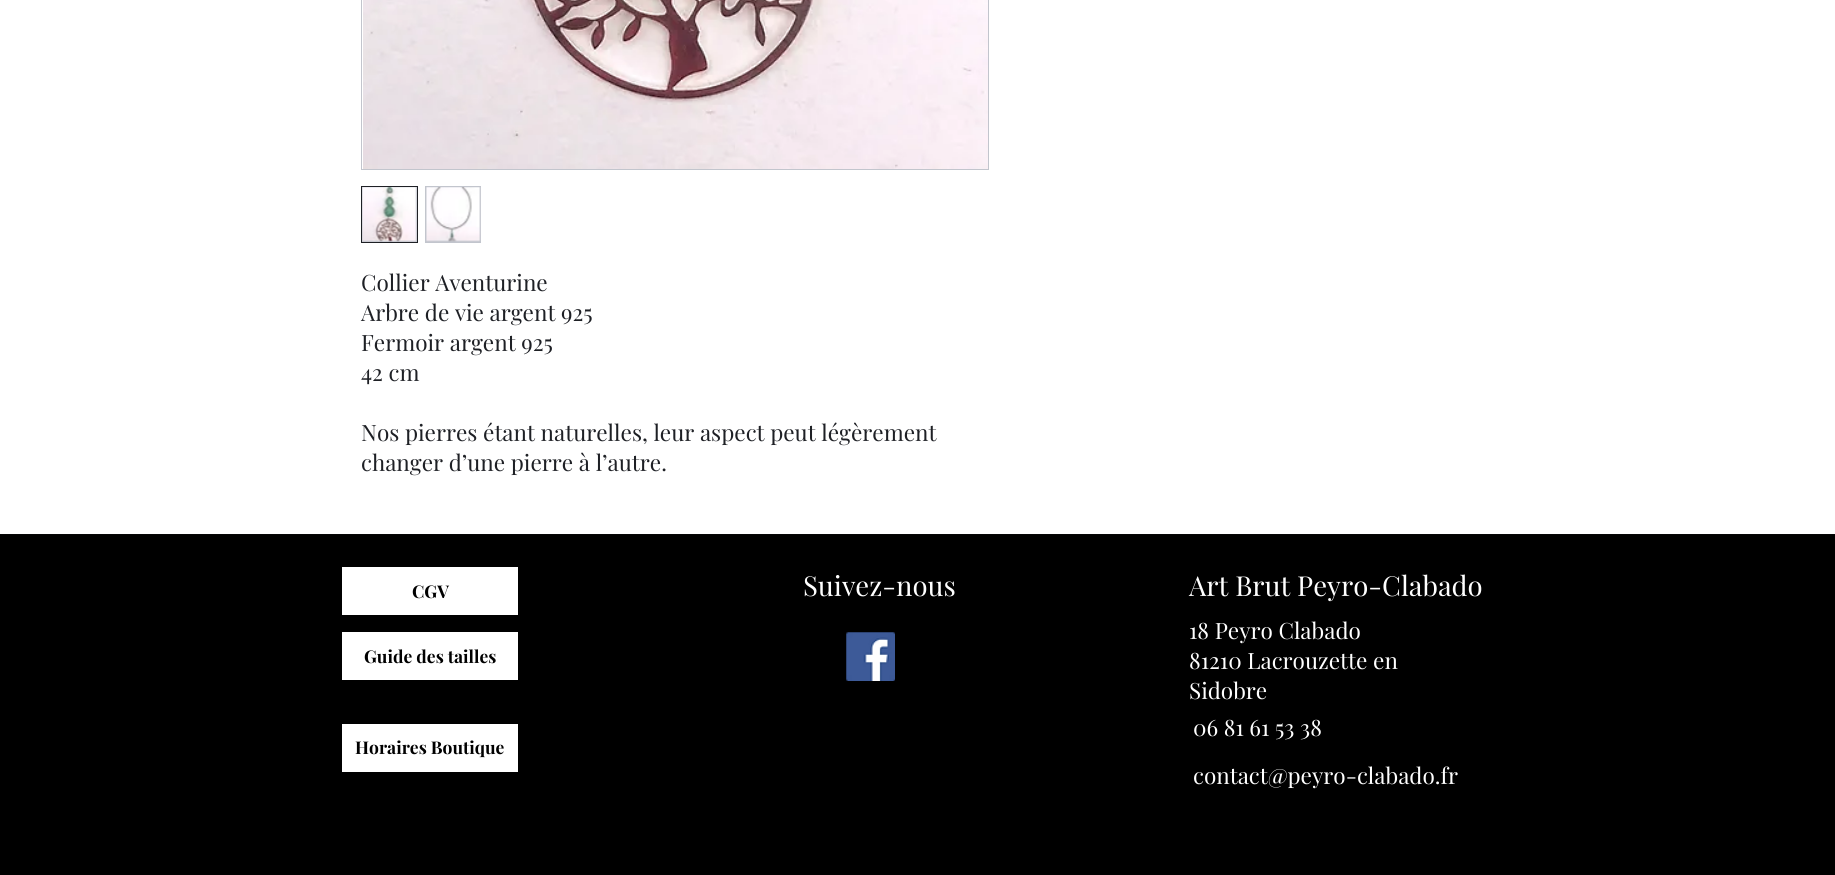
import math
import cairo

surface = cairo.ImageSurface(cairo.FORMAT_RGB24, 1835, 875)
c = cairo.Context(surface)
options = cairo.FontOptions()
options.set_hint_metrics(cairo.HINT_METRICS_OFF)
options.set_hint_style(cairo.HINT_STYLE_NONE)
c.set_font_options(options)
c.set_miter_limit(4)
def C(code):
 c.set_source_rgb(*(v / 255 for v in bytes.fromhex(code[-6:])))
def F(family, size, italic, bold):
 c.select_font_face(family, cairo.FONT_SLANT_ITALIC if italic else cairo.FONT_SLANT_NORMAL, cairo.FONT_WEIGHT_BOLD if bold else cairo.FONT_WEIGHT_NORMAL)
 c.set_font_size(size)
def T(x, y, s):
 c.move_to(x, y)
 c.show_text(s)
def R(x, y, w, h):
 c.rectangle(x, y, w, h)
 c.fill()
def I(path, x, y, w, h):
 c.save()
 c.set_source_surface(cairo.ImageSurface.create_from_png(path), x, y)
 c.rectangle(x, y, w, h)
 c.fill()
 c.restore()
C('ffffff')
c.paint()
c.rectangle(361.5,-.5,627,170)
C('c2c5cd')
c.set_line_width(1)
c.stroke()
I('1.png',363,0,625,169)
c.rectangle(361.5,186.5,56,56)
c.fill_preserve()
C('1e2025')
c.stroke()
I('2.png',362,187,55,55)
C('c2c5cd')
R(425,186,56,57)
I('3.png',426,187,55,55)
F('Playfair Display',22.5,0,0)
C('1e2025')
T(361,291,'Collier Aventurine')
T(361,321,'Arbre de vie argent 925')
T(361,351,'Fermoir argent 925')
T(361,381,'42 cm')
T(361,441,'Nos pierres étant naturelles, leur aspect peut légèrement')
T(361,471,'changer d’une pierre à l’autre.')
C('000000')
R(0,535,1835,340)
C('050506')
R(0,534,1835,1)
C('ffffff')
R(342,567,176,48)
F('Playfair Display',17.5,0,1)
C('000000')
T(412,598,'CGV')
F('Playfair Display',27.5,0,0)
C('ffffff')
T(803,596,'Suivez-nous')
T(1189,596,'Art Brut Peyro-Clabado')
R(342,632,176,48)
F('Playfair Display',17.5,0,1)
C('000000')
T(364,663,'Guide des tailles')
I('4.png',846,632,49,49)
F('Playfair Display',22.5,0,0)
C('ffffff')
T(1189,639,'18 Peyro Clabado')
T(1189,669,'81210 Lacrouzette en')
T(1189,699,'Sidobre')
T(1193,736,'06 81 61 53 38')
R(342,724,176,48)
F('Playfair Display',17.5,0,1)
C('000000')
T(355,754,'Horaires Boutique')
F('Playfair Display',22.5,0,0)
C('ffffff')
T(1193,784,'contact@peyro-clabado.fr')
surface.write_to_png('o.png')
